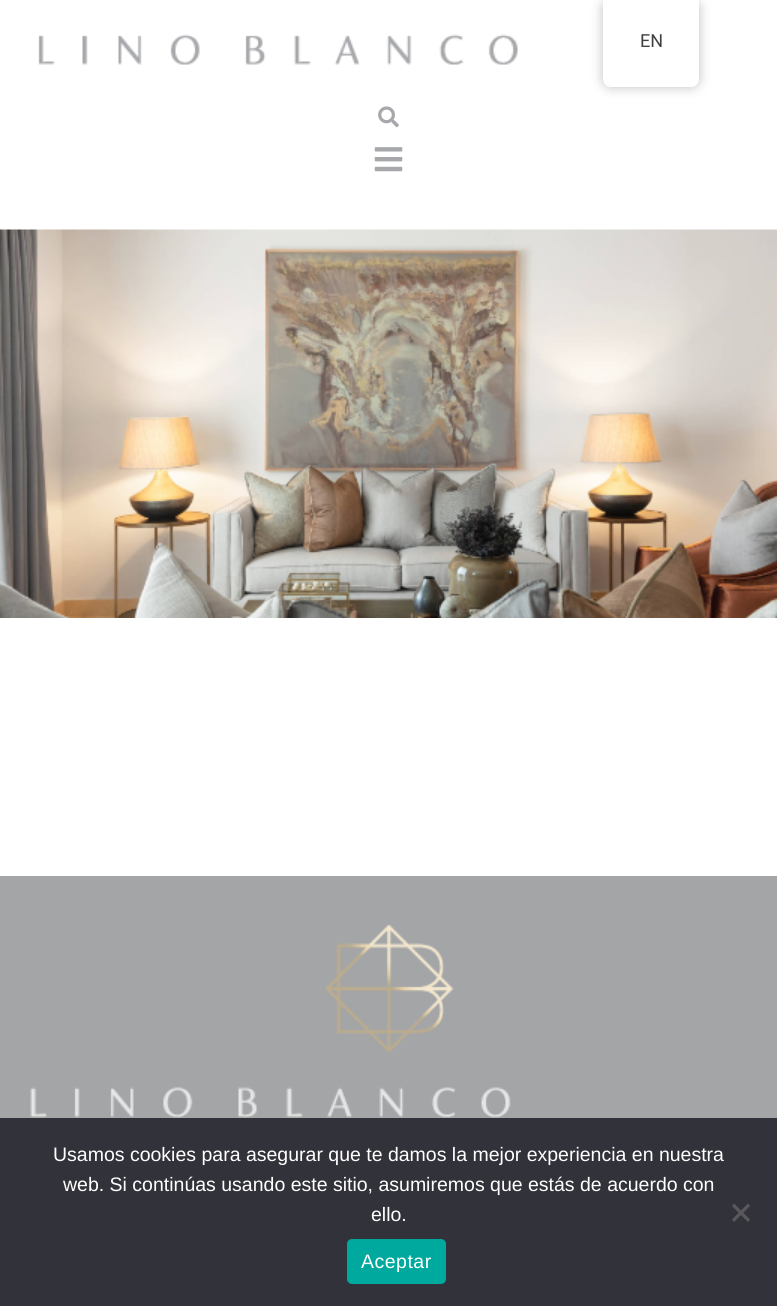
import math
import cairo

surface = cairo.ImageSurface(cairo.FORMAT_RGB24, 777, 1306)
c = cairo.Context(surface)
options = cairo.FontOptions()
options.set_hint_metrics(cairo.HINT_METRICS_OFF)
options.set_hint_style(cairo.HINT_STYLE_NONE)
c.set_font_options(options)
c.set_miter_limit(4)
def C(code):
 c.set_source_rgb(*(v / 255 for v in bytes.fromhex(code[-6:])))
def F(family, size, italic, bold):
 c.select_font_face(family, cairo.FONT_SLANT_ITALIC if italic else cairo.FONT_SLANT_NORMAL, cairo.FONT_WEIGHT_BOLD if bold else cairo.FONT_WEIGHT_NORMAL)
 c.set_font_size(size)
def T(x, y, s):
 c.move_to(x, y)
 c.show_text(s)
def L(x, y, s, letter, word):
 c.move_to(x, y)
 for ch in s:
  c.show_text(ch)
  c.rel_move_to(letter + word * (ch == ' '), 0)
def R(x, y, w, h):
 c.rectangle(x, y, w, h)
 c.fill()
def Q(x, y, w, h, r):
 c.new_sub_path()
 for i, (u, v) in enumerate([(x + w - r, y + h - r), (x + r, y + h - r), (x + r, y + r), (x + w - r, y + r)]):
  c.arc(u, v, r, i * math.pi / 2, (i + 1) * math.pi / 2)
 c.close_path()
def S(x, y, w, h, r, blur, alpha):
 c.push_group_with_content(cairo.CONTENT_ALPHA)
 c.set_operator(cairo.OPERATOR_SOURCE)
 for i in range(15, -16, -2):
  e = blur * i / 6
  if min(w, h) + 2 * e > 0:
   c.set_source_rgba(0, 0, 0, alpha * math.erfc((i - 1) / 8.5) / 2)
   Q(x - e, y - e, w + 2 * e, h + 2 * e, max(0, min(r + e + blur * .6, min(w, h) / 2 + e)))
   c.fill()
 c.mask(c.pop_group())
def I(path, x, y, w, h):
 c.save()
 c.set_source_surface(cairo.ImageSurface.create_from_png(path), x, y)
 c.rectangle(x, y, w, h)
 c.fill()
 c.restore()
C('ffffff')
c.paint()
C('000000')
S(603,0,96,87,8,6,.25)
C('ffffff')
c.new_path()
c.move_to(603,0)
c.line_to(699,0)
c.line_to(699,79)
c.curve_to(699,83.5,695.5,87,691,87)
c.line_to(611,87)
c.curve_to(606.5,87,603,83.5,603,79)
c.close_path()
c.fill()
F('Roboto',18,0,0)
C('404040')
T(640,47,'EN')
I('1.png',38,34,480,31)
I('2.png',378,106,21,22)
I('3.png',374,147,29,25)
I('4.png',0,229,777,389)
C('a3a5a7')
R(0,876,777,242)
I('5.png',325,924,129,129)
I('6.png',30,1087,481,31)
C('32323a')
R(0,1118,777,188)
F('Liberation Sans',19.5,0,0)
C('ffffff')
T(53,1161,'Usamos cookies para asegurar que te damos la mejor experiencia en nuestra')
T(63,1191,'web. Si continúas usando este sitio, asumiremos que estás de acuerdo con')
T(371,1221,'ello.')
C('59595d')
c.new_path()
c.move_to(748,1203.5)
c.line_to(750,1206)
c.line_to(734,1222)
c.line_to(732,1219.5)
c.close_path()
c.fill()
c.new_path()
c.move_to(732,1206)
c.line_to(734,1203.5)
c.line_to(750,1219.5)
c.line_to(748,1222)
c.close_path()
c.fill()
C('00a99d')
Q(347,1239,99,45,5)
c.fill()
C('ffffff')
L(361,1268,'Aceptar',.5,0)
surface.write_to_png('o.png')
